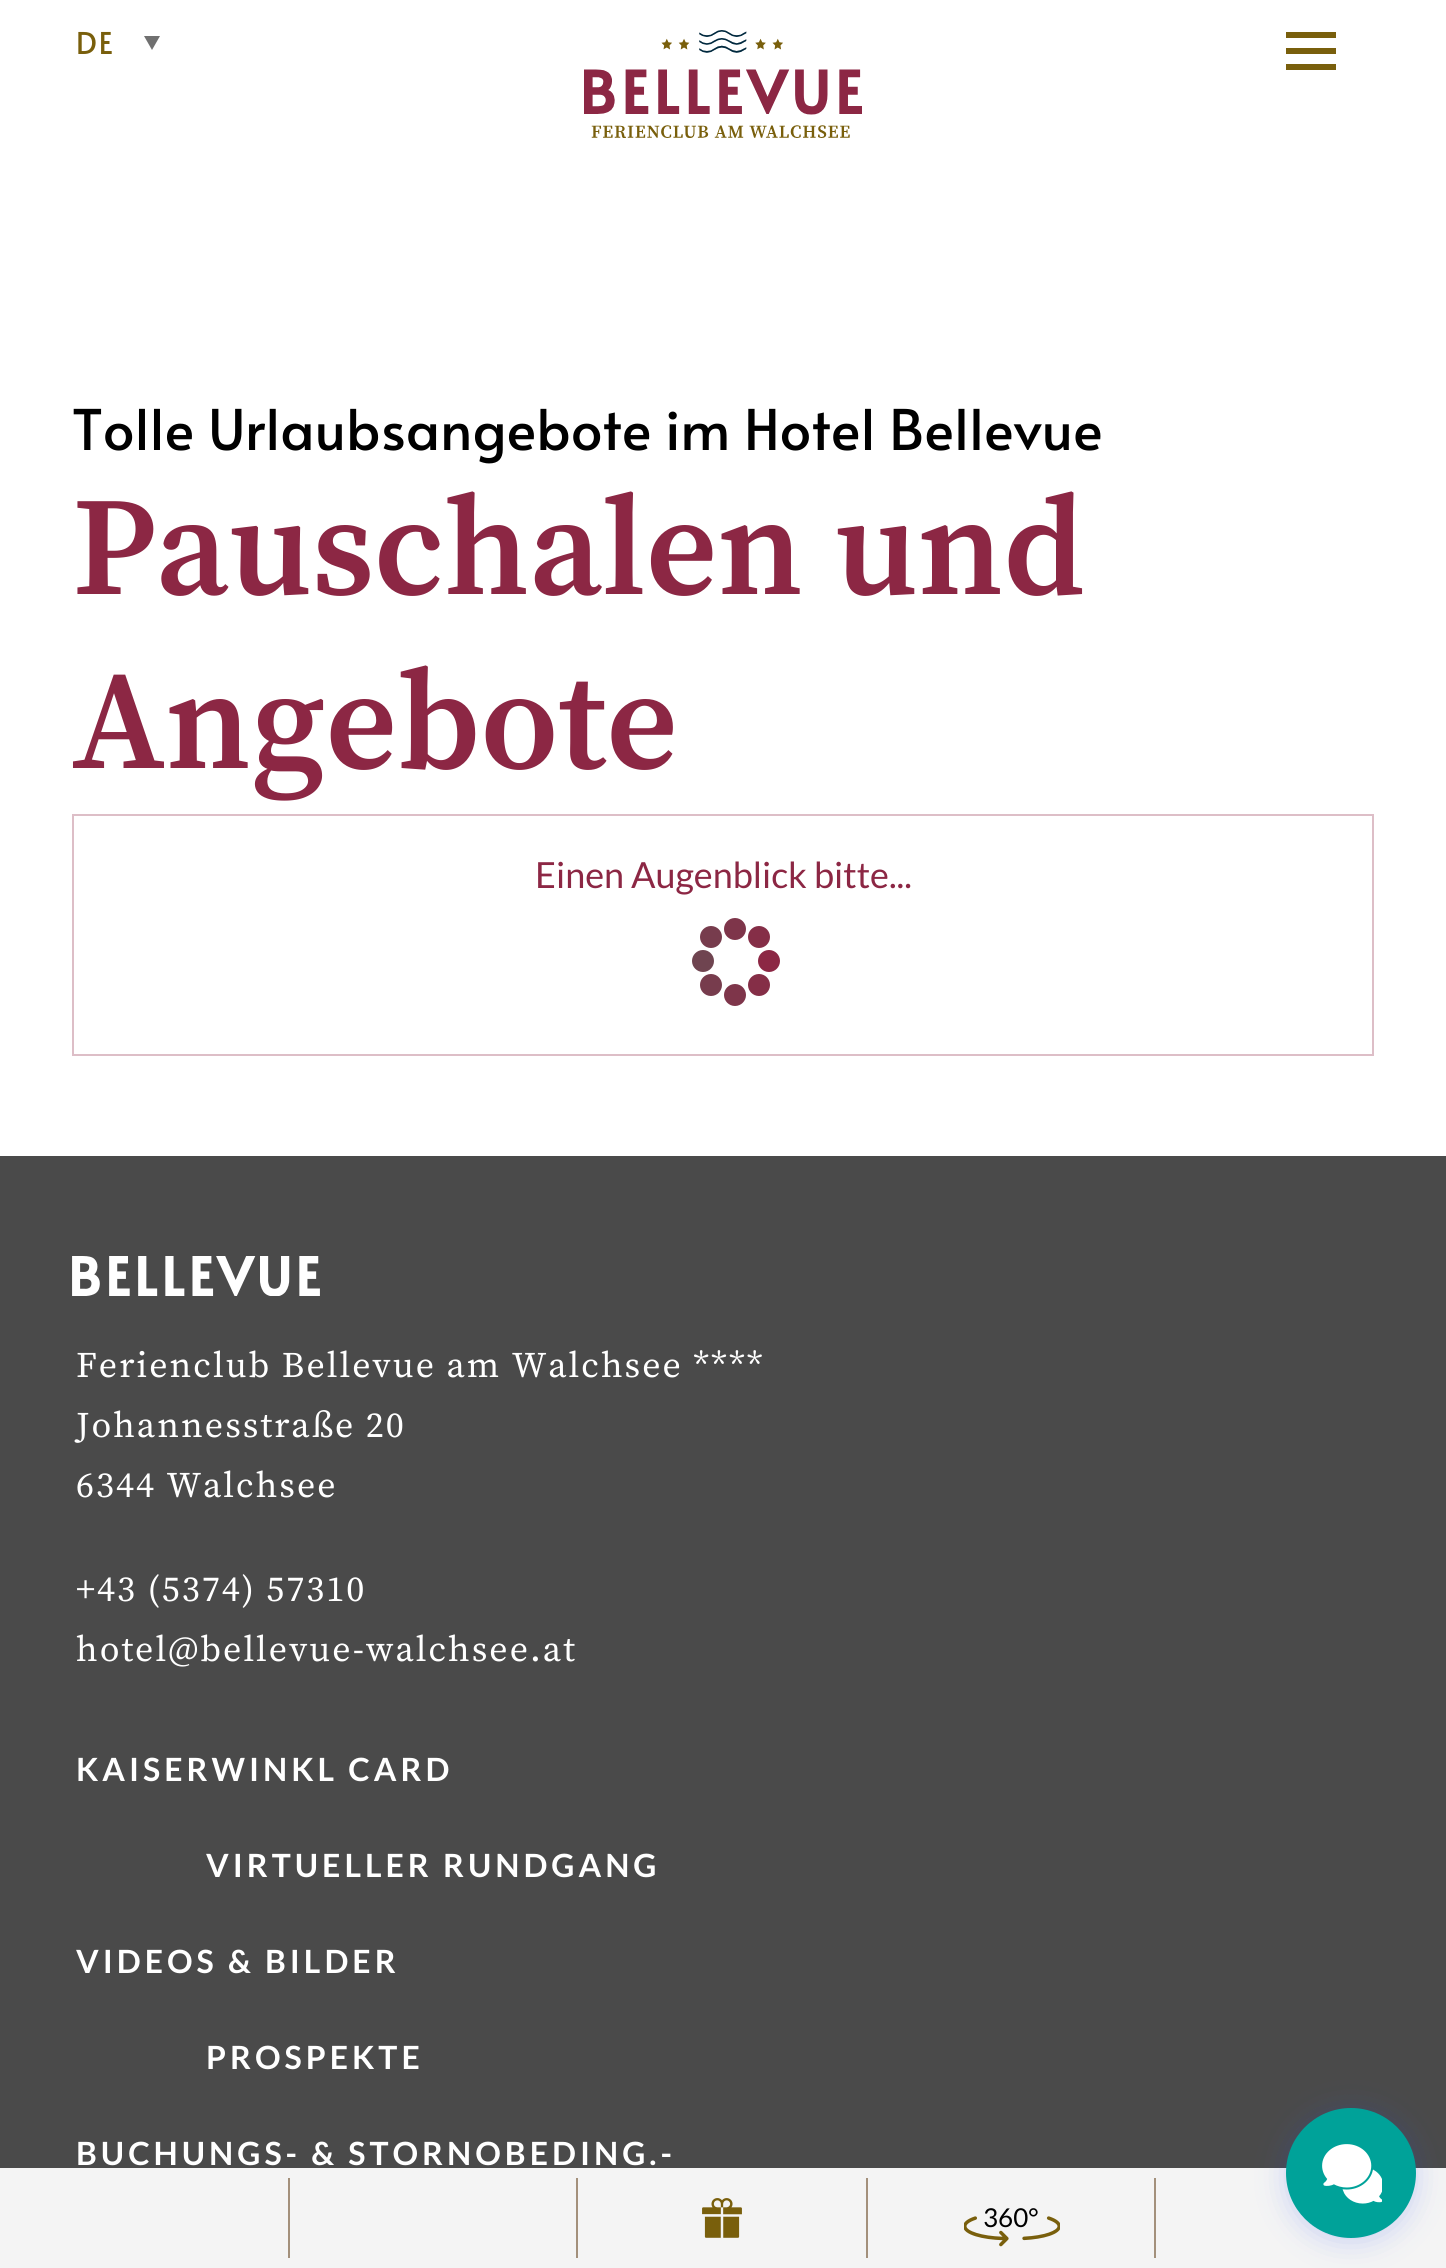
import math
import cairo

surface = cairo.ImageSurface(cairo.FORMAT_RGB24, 1446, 2268)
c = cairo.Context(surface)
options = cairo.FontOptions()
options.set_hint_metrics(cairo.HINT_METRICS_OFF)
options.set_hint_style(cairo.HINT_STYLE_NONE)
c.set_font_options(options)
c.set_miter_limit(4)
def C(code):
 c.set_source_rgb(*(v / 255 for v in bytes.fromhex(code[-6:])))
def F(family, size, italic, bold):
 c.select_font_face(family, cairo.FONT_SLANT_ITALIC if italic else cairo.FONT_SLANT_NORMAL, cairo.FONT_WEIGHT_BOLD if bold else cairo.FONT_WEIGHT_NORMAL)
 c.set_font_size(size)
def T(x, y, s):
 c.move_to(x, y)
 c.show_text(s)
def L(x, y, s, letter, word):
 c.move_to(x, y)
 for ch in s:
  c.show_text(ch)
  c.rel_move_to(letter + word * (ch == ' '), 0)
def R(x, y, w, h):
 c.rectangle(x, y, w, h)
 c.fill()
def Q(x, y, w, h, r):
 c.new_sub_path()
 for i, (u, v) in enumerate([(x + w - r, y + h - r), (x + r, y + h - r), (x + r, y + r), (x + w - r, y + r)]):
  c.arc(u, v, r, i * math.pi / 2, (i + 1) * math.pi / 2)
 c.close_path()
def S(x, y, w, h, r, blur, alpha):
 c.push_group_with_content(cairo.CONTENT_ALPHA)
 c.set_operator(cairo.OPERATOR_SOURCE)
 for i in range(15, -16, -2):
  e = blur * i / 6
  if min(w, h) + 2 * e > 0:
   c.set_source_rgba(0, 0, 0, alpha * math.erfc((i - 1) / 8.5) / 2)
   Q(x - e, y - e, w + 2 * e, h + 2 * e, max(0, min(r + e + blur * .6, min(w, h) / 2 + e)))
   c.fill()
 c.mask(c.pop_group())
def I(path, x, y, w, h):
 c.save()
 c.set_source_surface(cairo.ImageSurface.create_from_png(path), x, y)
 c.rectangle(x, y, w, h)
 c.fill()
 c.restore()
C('ffffff')
c.paint()
F('Alata',30,0,0)
C('795f0c')
L(76,54,'DE',2,0)
C('707070')
c.new_path()
c.move_to(144,36)
c.line_to(160,36)
c.line_to(152,50)
c.close_path()
c.fill()
C('795f0c')
R(1286,32,50,6)
R(1286,48,50,6)
R(1286,64,50,6)
I('1.png',584,30,278,108)
C('f4f4f4')
R(0,2168,1446,100)
C('a3907b')
R(288,2178,2,80)
R(576,2178,2,80)
R(866,2178,2,80)
I('2.png',702,2198,40,40)
R(1154,2178,2,80)
F('Lato',26,0,0)
C('000000')
T(983,2227,'360°')
I('3.png',964,2216,96,31)
F('Alata',56,0,0)
T(72,450,'Tolle Urlaubsangebote im Hotel Bellevue')
F('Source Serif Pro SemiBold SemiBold',140,0,0)
C('8c2744')
T(72,594,'Pauschalen und')
T(72,768,'Angebote')
c.rectangle(73,815,1300,240)
C('ddbec7')
c.stroke()
F('Lato',36,0,0)
C('8c2744')
T(535,888,'Einen Augenblick bitte...')
C('852e47')
c.new_path()
c.arc(759,937,11,0,2 * math.pi)
c.fill()
C('7e354a')
c.arc(735,929,11,0,2 * math.pi)
c.fill()
C('773c4d')
c.arc(711,937,11,0,2 * math.pi)
c.fill()
C('6f4450')
c.arc(703,961,11,0,2 * math.pi)
c.fill()
C('773c4d')
c.arc(711,985,11,0,2 * math.pi)
c.fill()
C('7e354a')
c.arc(735,995,11,0,2 * math.pi)
c.fill()
C('852e47')
c.arc(759,985,11,0,2 * math.pi)
c.fill()
C('8c2744')
c.arc(769,961,11,0,2 * math.pi)
c.fill()
C('4a4a4a')
R(0,1156,1446,1012)
I('4.png',72,1256,248,40)
F('Source Serif Pro',36,0,0)
C('ffffff')
L(76,1377,'Ferienclub Bellevue am Walchsee ****',2,0)
L(76,1437,'Johannesstraße 20',2,0)
L(76,1497,'6344 Walchsee',2,0)
L(76,1601,'+43 (5374) 57310',2,0)
L(76,1661,'hotel@bellevue-walchsee.at',2,0)
F('Lato',32,0,1)
L(76,1781,'KAISERWINKL CARD',4,0)
L(206,1877,'VIRTUELLER RUNDGANG',4,0)
L(76,1973,'VIDEOS & BILDER',4,0)
L(206,2069,'PROSPEKTE',4,0)
L(76,2165,'BUCHUNGS- & STORNOBEDING.-',4,0)
C('2c50ef')
S(1286,2112,130,130,65,15,.21)
C('00a299')
c.arc(1351,2173,65,0,2 * math.pi)
c.fill()
I('5.png',1322,2144,60,60)
surface.write_to_png('o.png')
